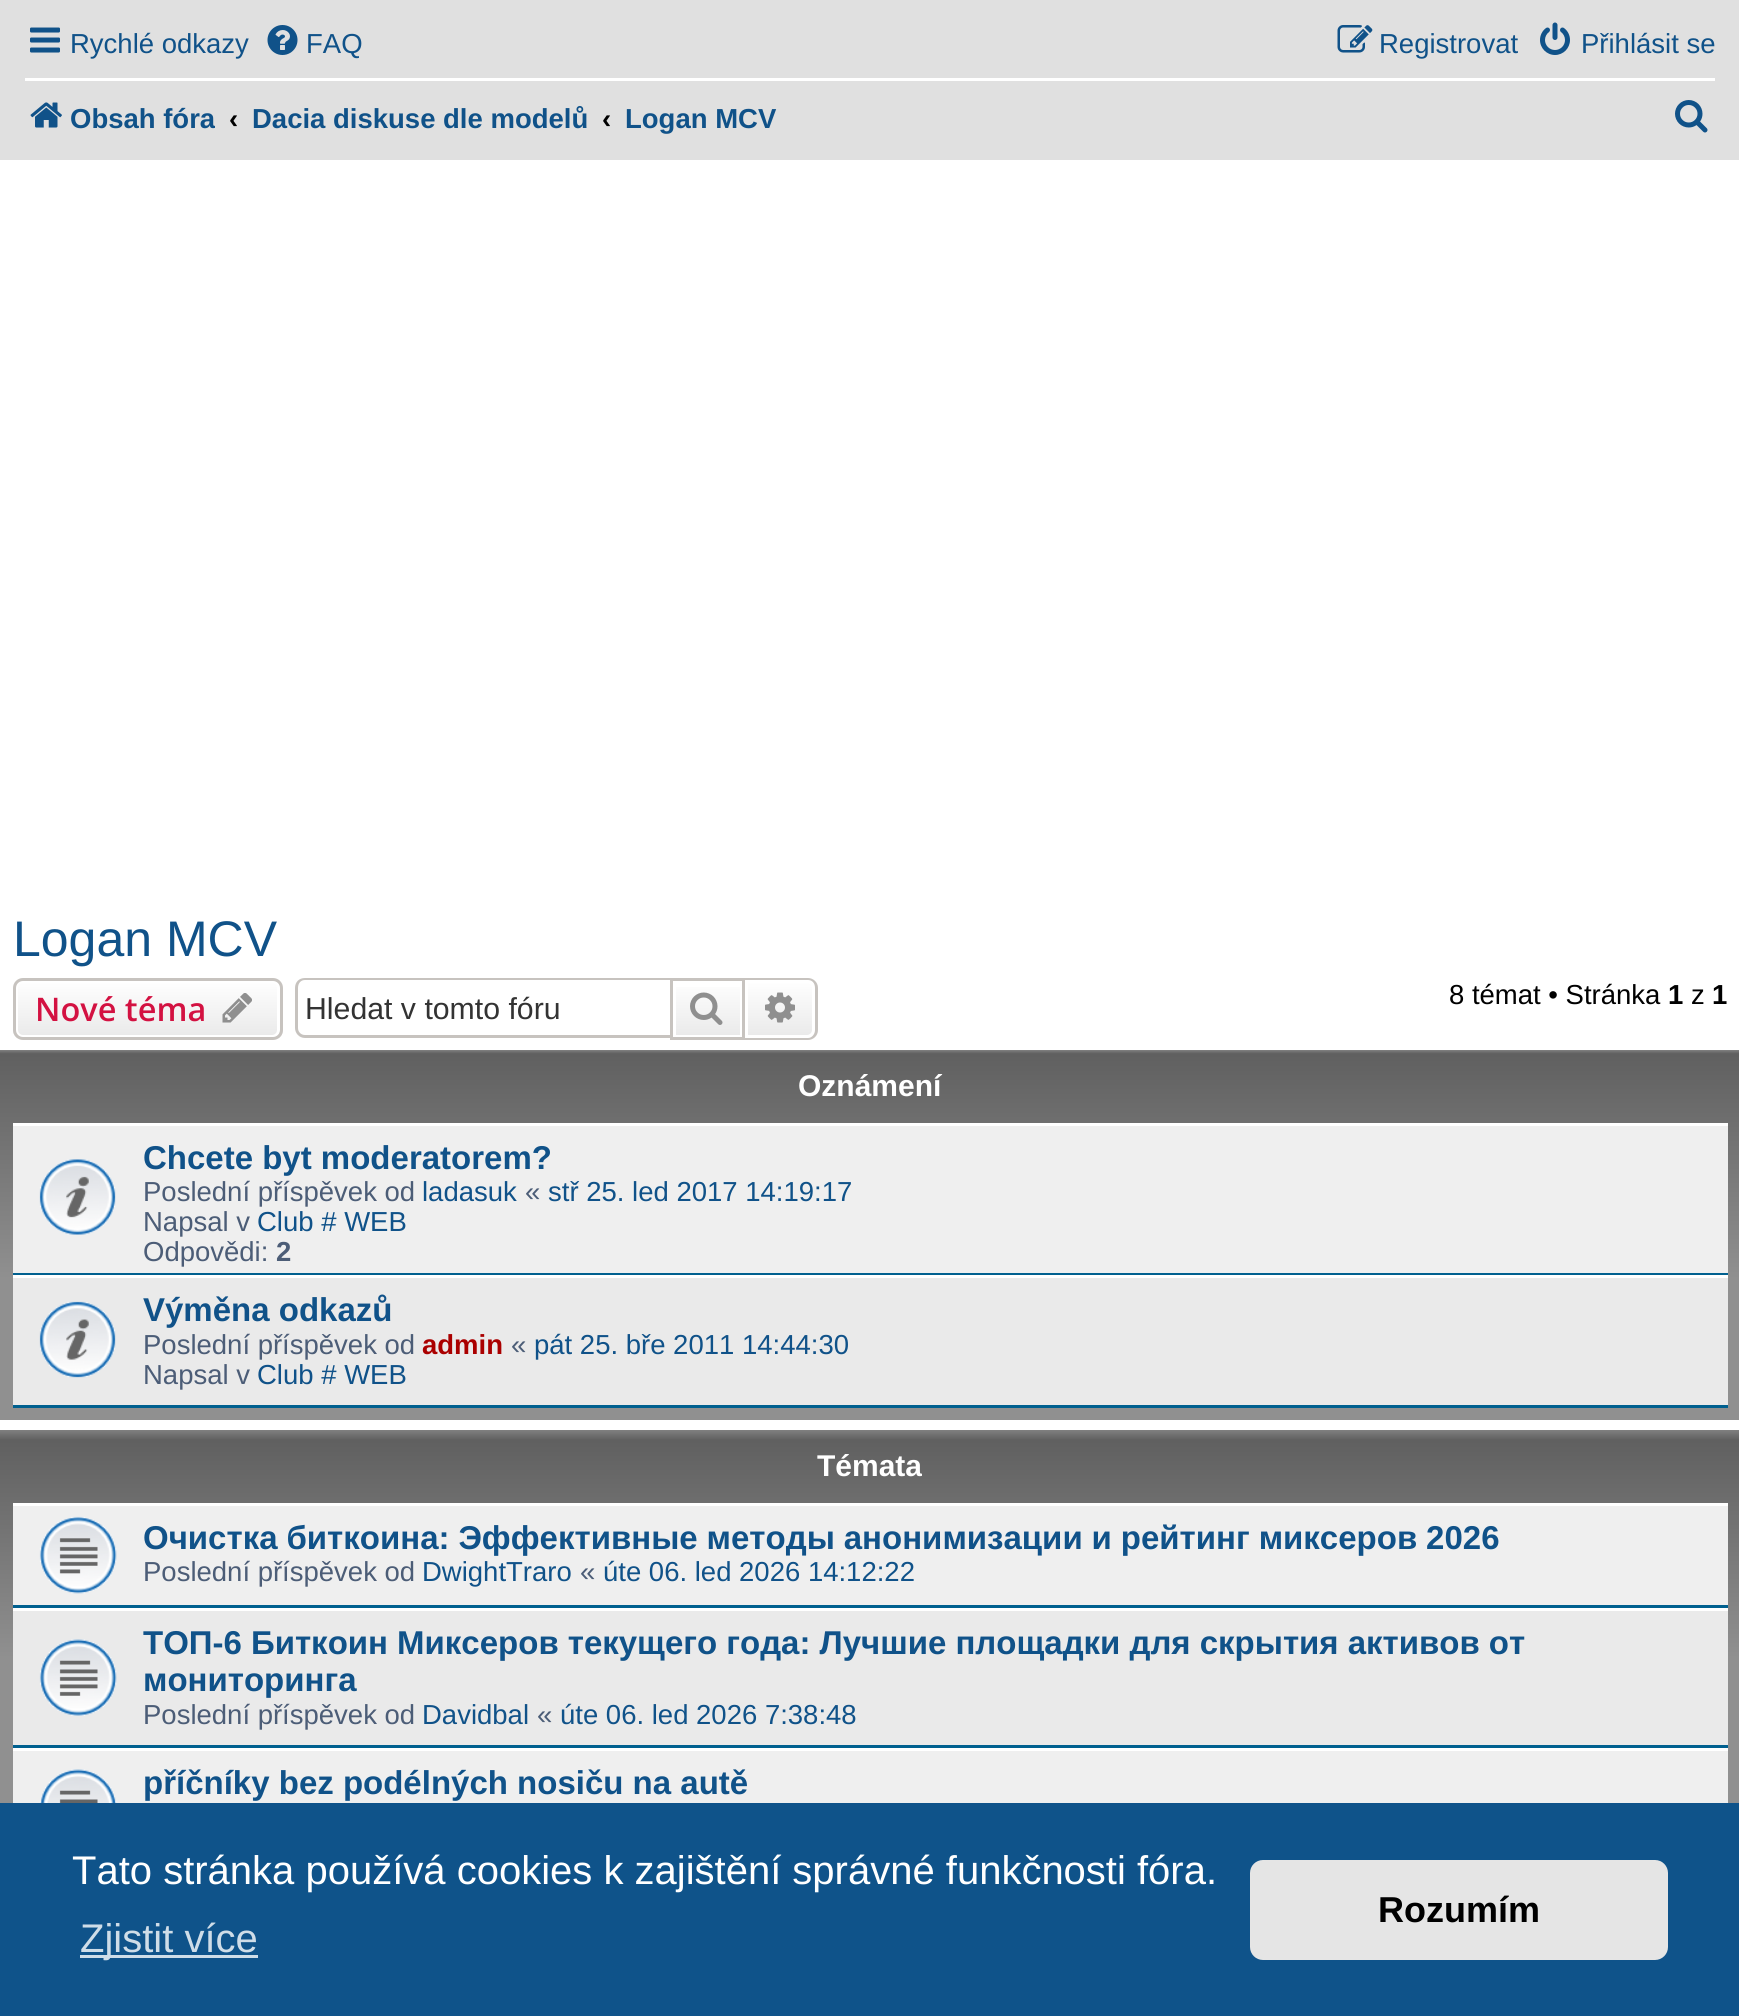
import math
import cairo

surface = cairo.ImageSurface(cairo.FORMAT_RGB24, 1739, 2016)
c = cairo.Context(surface)
options = cairo.FontOptions()
options.set_hint_metrics(cairo.HINT_METRICS_OFF)
options.set_hint_style(cairo.HINT_STYLE_NONE)
c.set_font_options(options)
c.set_miter_limit(4)
def C(code):
 c.set_source_rgb(*(v / 255 for v in bytes.fromhex(code[-6:])))
def F(family, size, italic, bold):
 c.select_font_face(family, cairo.FONT_SLANT_ITALIC if italic else cairo.FONT_SLANT_NORMAL, cairo.FONT_WEIGHT_BOLD if bold else cairo.FONT_WEIGHT_NORMAL)
 c.set_font_size(size)
def T(x, y, s):
 c.move_to(x, y)
 c.show_text(s)
def L(x, y, s, letter, word):
 c.move_to(x, y)
 for ch in s:
  c.show_text(ch)
  c.rel_move_to(letter + word * (ch == ' '), 0)
def R(x, y, w, h):
 c.rectangle(x, y, w, h)
 c.fill()
def Q(x, y, w, h, r):
 c.new_sub_path()
 for i, (u, v) in enumerate([(x + w - r, y + h - r), (x + r, y + h - r), (x + r, y + r), (x + w - r, y + r)]):
  c.arc(u, v, r, i * math.pi / 2, (i + 1) * math.pi / 2)
 c.close_path()
def I(path, x, y, w, h):
 c.save()
 c.set_source_surface(cairo.ImageSurface.create_from_png(path), x, y)
 c.rectangle(x, y, w, h)
 c.fill()
 c.restore()
C('ffffff')
c.paint()
C('e0e0e0')
R(0,0,1739,160)
I('1.png',30,27,30,26)
F('Liberation Sans',27.5,0,0)
C('105289')
T(70,53,'Rychlé odkazy')
I('2.png',267,25,31,30)
T(306,53,'FAQ')
I('3.png',1337,25,36,28)
T(1379,53,'Registrovat')
I('4.png',1540,22,30,33)
T(1581,53,'Přihlásit se')
C('ffffff')
R(25,78,1690,3)
I('5.png',30,102,32,26)
c.save()
c.rectangle(25,88,190,60)
c.clip()
F('Liberation Sans',27.5,0,1)
C('105289')
T(70,128,'Obsah fóra')
c.restore()
F('Liberation Sans',27.5,0,1)
C('000000')
T(229,128,'‹')
C('105289')
T(252,128,'Dacia diskuse dle modelů')
C('000000')
T(602,128,'‹')
C('105289')
T(625,128,'Logan MCV')
I('6.png',1675,100,33,33)
F('Liberation Sans',50,0,0)
T(13,956,'Logan MCV')
c.save()
Q(13,978,270,62,10)
c.clip()
gradient = cairo.LinearGradient(148,980,148,1038)
gradient.add_color_stop_rgba(0,1,1,1,1)
gradient.add_color_stop_rgba(1,0.914,0.914,0.914,1)
c.set_source(gradient)
R(13,980,270,58)
c.restore()
Q(16.5,981.5,262,55,6.5)
C('ffffff')
c.set_line_width(3)
c.stroke()
Q(14.5,979.5,267,59,8.5)
C('c7c3bf')
c.stroke()
F('Open Sans SemiBold',32.5,0,0)
C('d31141')
T(35,1021,'Nové téma')
I('7.png',222,993,30,30)
C('c7c3bf')
c.set_fill_rule(cairo.FILL_RULE_EVEN_ODD)
c.new_path()
c.move_to(305,978)
c.line_to(670,978)
c.line_to(670,1038)
c.line_to(305,1038)
c.curve_to(299,1038,295,1033,295,1028)
c.line_to(295,988)
c.curve_to(295,982,299,978,305,978)
c.close_path()
c.move_to(305,980)
c.line_to(670,980)
c.line_to(670,1035)
c.line_to(305,1035)
c.curve_to(301,1035,298,1032,298,1028)
c.line_to(298,988)
c.curve_to(298,983,301,980,305,980)
c.close_path()
c.fill()
F('Liberation Sans',30.25,0,0)
C('333333')
T(305,1019,'Hledat v tomto fóru')
gradient = cairo.LinearGradient(708,980,708,1038)
gradient.add_color_stop_rgba(0,1,1,1,1)
gradient.add_color_stop_rgba(1,0.914,0.914,0.914,1)
c.set_source(gradient)
R(676,987,64,48)
c.rectangle(671.5,979.5,72,59)
C('c7c3bf')
c.stroke()
I('8.png',690,992,33,33)
gradient = cairo.LinearGradient(780,980,780,1038)
gradient.add_color_stop_rgba(0,1,1,1,1)
gradient.add_color_stop_rgba(1,0.914,0.914,0.914,1)
c.set_source(gradient)
c.new_path()
c.move_to(746.5,981.5)
c.line_to(807,981.5)
c.curve_to(810.5,981.5,813.5,984.5,813.5,988)
c.line_to(813.5,1030)
c.curve_to(813.5,1033.5,810.5,1036.5,807,1036.5)
c.line_to(746.5,1036.5)
c.close_path()
c.fill_preserve()
C('ffffff')
c.stroke()
C('c7c3bf')
c.new_path()
c.move_to(745,978)
c.line_to(808,978)
c.curve_to(813,978,818,982,818,988)
c.line_to(818,1030)
c.curve_to(818,1036,813,1040,808,1040)
c.line_to(745,1040)
c.close_path()
c.move_to(745,980)
c.line_to(808,980)
c.curve_to(812,980,815,983,815,988)
c.line_to(815,1030)
c.curve_to(815,1034,812,1038,808,1038)
c.line_to(745,1038)
c.close_path()
c.fill()
I('9.png',765,992,30,31)
F('Liberation Sans',27.5,0,0)
C('000000')
T(1449,1004,'8 témat • Stránka')
F('Liberation Sans',27.5,0,1)
T(1668,1004,'1')
F('Liberation Sans',27.5,0,0)
T(1691,1004,'z')
F('Liberation Sans',27.5,0,1)
T(1712,1004,'1')
gradient = cairo.LinearGradient(870,1050,870,1420)
gradient.add_color_stop_rgba(0,0.502,0.502,0.502,1)
gradient.add_color_stop_rgba(.01,0.376,0.376,0.376,1)
gradient.add_color_stop_rgba(.62,0.565,0.565,0.565,1)
gradient.add_color_stop_rgba(1,0.565,0.565,0.565,1)
c.set_source(gradient)
R(0,1050,1739,370)
F('Liberation Sans',30,0,1)
C('ffffff')
T(798,1096,'Oznámení')
C('efefef')
R(13,1126,1715,147)
C('ffffff')
R(13,1123,1715,3)
C('00608f')
R(13,1273,1715,2)
I('10.png',39,1159,77,76)
F('Liberation Sans',33,0,1)
C('105289')
T(143,1169,'Chcete byt moderatorem?')
F('Liberation Sans',27.5,0,0)
C('4c5d77')
T(143,1201,'Poslední příspěvek od')
C('105289')
T(422,1201,'ladasuk')
C('4c5d77')
T(525,1201,'«')
C('105289')
T(548,1201,'stř 25. led 2017 14:19:17')
C('4c5d77')
T(143,1231,'Napsal v')
C('105289')
T(257,1231,'Club # WEB')
C('4c5d77')
T(143,1261,'Odpovědi:')
F('Liberation Sans',27.5,0,1)
T(276,1261,'2')
C('eaeaea')
R(13,1278,1715,127)
C('ffffff')
R(13,1275,1715,3)
C('00608f')
R(13,1405,1715,3)
I('11.png',39,1301,77,77)
F('Liberation Sans',33,0,1)
C('105289')
T(143,1321,'Výměna odkazů')
F('Liberation Sans',27.5,0,0)
C('4c5d77')
T(143,1354,'Poslední příspěvek od')
F('Liberation Sans',27.5,0,1)
C('aa0000')
T(422,1354,'admin')
F('Liberation Sans',27.5,0,0)
C('4c5d77')
T(511,1354,'«')
C('105289')
T(534,1354,'pát 25. bře 2011 14:44:30')
C('4c5d77')
T(143,1384,'Napsal v')
C('105289')
T(257,1384,'Club # WEB')
gradient = cairo.LinearGradient(870,1430,870,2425)
gradient.add_color_stop_rgba(0,0.502,0.502,0.502,1)
gradient.add_color_stop_rgba(.01,0.376,0.376,0.376,1)
gradient.add_color_stop_rgba(.23,0.565,0.565,0.565,1)
gradient.add_color_stop_rgba(1,0.565,0.565,0.565,1)
c.set_source(gradient)
R(0,1430,1739,373)
F('Liberation Sans',30,0,1)
C('ffffff')
T(817,1476,'Témata')
C('efefef')
R(13,1506,1715,99)
C('ffffff')
R(13,1503,1715,3)
C('00608f')
R(13,1605,1715,3)
I('12.png',39,1516,78,78)
F('Liberation Sans',33,0,1)
C('105289')
L(143,1549,'Очистка биткоина: Эффективные методы анонимизации и рейтинг миксеров 2026',0,-.25)
F('Liberation Sans',27.5,0,0)
C('4c5d77')
T(143,1581,'Poslední příspěvek od')
C('105289')
T(422,1581,'DwightTraro')
C('4c5d77')
T(580,1581,'«')
C('105289')
T(603,1581,'úte 06. led 2026 14:12:22')
C('eaeaea')
R(13,1611,1715,134)
C('ffffff')
R(13,1608,1715,3)
C('00608f')
R(13,1745,1715,3)
I('13.png',39,1639,78,77)
F('Liberation Sans',33,0,1)
C('105289')
L(143,1654,'ТОП-6 Биткоин Миксеров текущего года: Лучшие площадки для скрытия активов от',0,-.1)
T(143,1691,'мониторинга')
F('Liberation Sans',27.5,0,0)
C('4c5d77')
T(143,1724,'Poslední příspěvek od')
C('105289')
T(422,1724,'Davidbal')
C('4c5d77')
T(537,1724,'«')
C('105289')
T(560,1724,'úte 06. led 2026 7:38:48')
C('efefef')
R(13,1751,1715,52)
C('ffffff')
R(13,1748,1715,3)
I('14.png',39,1769,78,34)
F('Liberation Sans',33,0,1)
C('105289')
T(143,1794,'příčníky bez podélných nosiču na autě')
C('0f538a')
R(0,1803,1739,213)
F('Liberation Sans',40,0,0)
C('ffffff')
T(72,1884,'Tato stránka používá cookies k zajištění správné funkčnosti fóra.')
C('cfdde8')
R(80,1955,178,3)
T(80,1952,'Zjistit více')
C('e5e5e5')
Q(1250,1860,418,100,13)
c.fill()
F('Liberation Sans',36,0,1)
C('000000')
T(1378,1922,'Rozumím')
surface.write_to_png('o.png')
